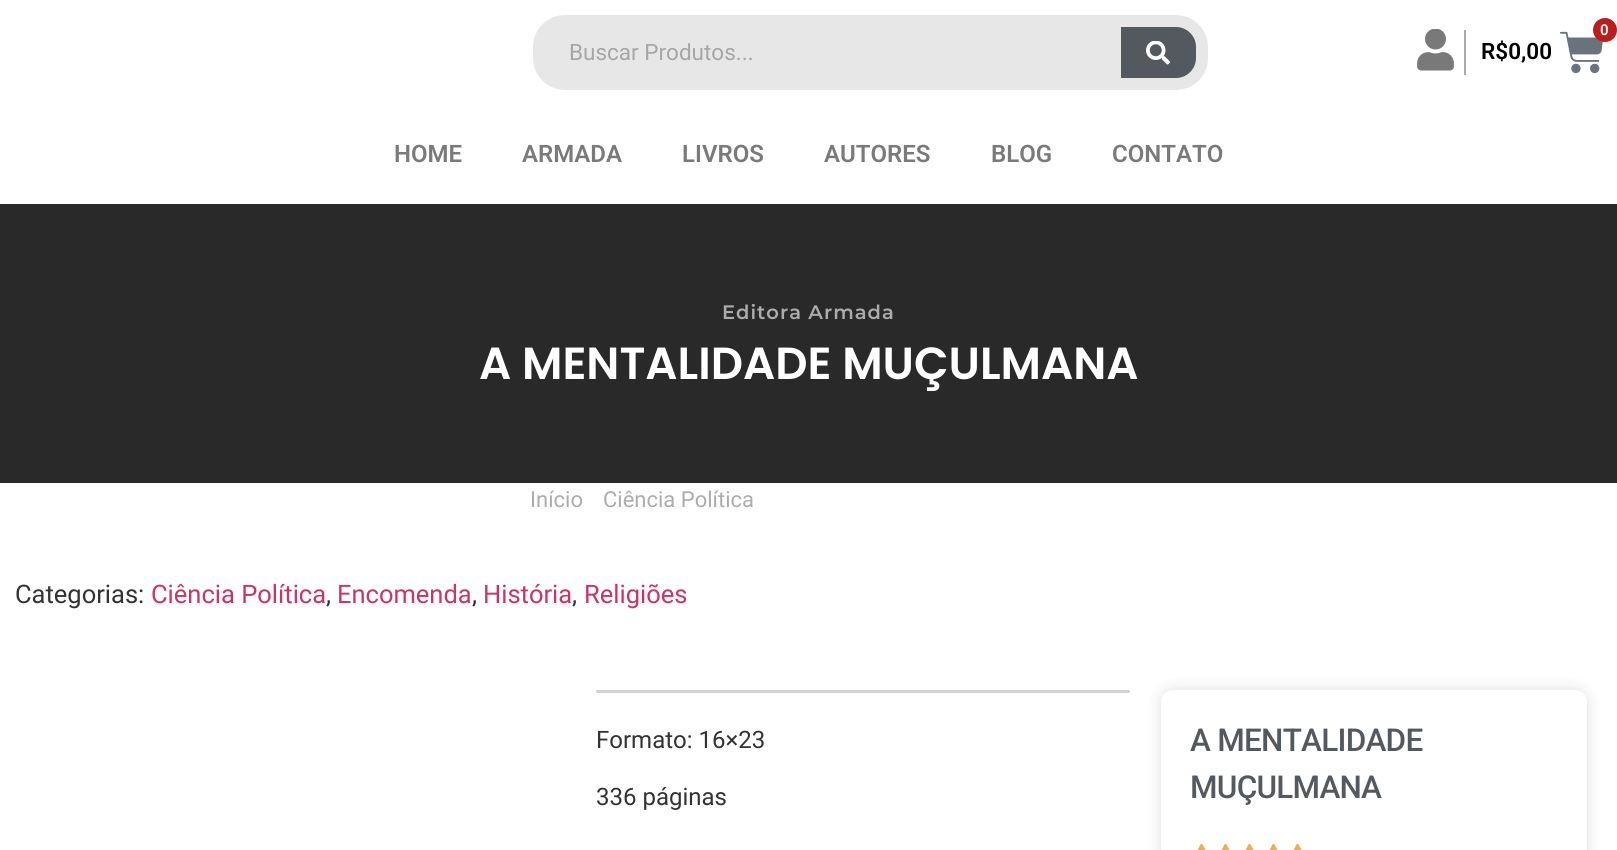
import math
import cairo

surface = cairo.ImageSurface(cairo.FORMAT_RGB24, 1617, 850)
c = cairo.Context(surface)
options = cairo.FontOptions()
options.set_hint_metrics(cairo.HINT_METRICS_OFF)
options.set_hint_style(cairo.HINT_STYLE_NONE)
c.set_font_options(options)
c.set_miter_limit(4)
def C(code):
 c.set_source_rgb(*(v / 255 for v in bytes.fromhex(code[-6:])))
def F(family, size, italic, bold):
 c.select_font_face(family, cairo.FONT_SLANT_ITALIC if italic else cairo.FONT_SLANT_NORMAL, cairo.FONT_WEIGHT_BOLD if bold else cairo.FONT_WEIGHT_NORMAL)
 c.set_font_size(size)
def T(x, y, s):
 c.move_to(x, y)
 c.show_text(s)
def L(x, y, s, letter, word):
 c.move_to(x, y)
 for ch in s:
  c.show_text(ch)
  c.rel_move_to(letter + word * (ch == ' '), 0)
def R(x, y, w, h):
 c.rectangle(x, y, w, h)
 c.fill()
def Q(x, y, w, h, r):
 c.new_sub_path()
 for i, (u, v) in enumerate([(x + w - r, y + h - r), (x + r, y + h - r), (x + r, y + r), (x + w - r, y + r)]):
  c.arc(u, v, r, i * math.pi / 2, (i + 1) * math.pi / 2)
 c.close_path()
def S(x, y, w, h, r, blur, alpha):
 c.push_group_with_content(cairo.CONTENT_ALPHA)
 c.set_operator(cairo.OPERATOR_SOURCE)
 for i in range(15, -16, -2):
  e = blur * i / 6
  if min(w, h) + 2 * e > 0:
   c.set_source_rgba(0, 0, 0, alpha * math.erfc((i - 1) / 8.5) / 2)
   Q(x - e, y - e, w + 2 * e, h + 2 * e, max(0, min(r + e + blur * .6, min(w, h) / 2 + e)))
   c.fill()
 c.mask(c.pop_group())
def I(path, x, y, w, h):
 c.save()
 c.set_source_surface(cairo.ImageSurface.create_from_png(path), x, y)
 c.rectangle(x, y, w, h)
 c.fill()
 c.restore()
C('ffffff')
c.paint()
C('e7e7e7')
Q(533,15,675,75,32)
c.fill()
F('Roboto',22.5,0,0)
C('a6a6a6')
T(569,60,'Buscar Produtos...')
C('54595f')
c.new_path()
c.move_to(1121,27)
c.line_to(1176,27)
c.curve_to(1187,27,1196,36,1196,47)
c.line_to(1196,58)
c.curve_to(1196,69,1187,78,1176,78)
c.line_to(1121,78)
c.close_path()
c.fill()
I('1.png',1146,41,24,24)
I('2.png',1417,29,37,42)
C('a9a9a9')
R(1464,30,2,45)
I('3.png',1560,31,43,43)
C('bb1c1c')
c.arc(1605,30,12,0,2 * math.pi)
c.fill()
F('Roboto SemiBold',15,0,0)
C('ffffff')
T(1600,35,'0')
F('Roboto SemiBold',22.5,0,0)
C('000000')
T(1481,59,'R$0,00')
F('Roboto SemiBold',24,0,0)
C('7a7a7a')
T(394,162,'HOME')
T(522,162,'ARMADA')
T(682,162,'LIVROS')
T(824,162,'AUTORES')
T(991,162,'BLOG')
T(1112,162,'CONTATO')
C('292929')
R(0,204,1617,279)
F('Montserrat SemiBold',19.5,0,0)
C('acacac')
L(722,319,'Editora Armada',1,0)
F('Poppins SemiBold',45,0,0)
C('ffffff')
T(479,379,'A MENTALIDADE MUÇULMANA')
F('Roboto',22,0,0)
C('acacac')
T(530,507,'Início')
T(603,507,'Ciência Política')
F('Roboto',25.5,0,0)
C('333333')
T(15,603,'Categorias:')
C('cc3366')
T(151,603,'Ciência Política')
C('333333')
T(326,603,',')
C('cc3366')
T(337,603,'Encomenda')
C('333333')
T(472,603,',')
C('cc3366')
T(483,603,'História')
C('333333')
T(572,603,',')
C('cc3366')
T(584,603,'Religiões')
C('d3d3d3')
Q(596,690,534,3,1.5)
c.fill()
F('Roboto',24,0,0)
C('333333')
T(596,748,'Formato: 16×23')
T(596,805,'336 páginas')
C('000000')
S(1161,690,426,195,12,7.5,.13)
C('ffffff')
Q(1161,690,426,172,12)
c.fill()
F('Roboto Medium',31.5,0,0)
C('54595f')
L(1190,751,'A MENTALIDADE',-.75,0)
L(1190,798,'MUÇULMANA',-.75,0)
I('4.png',1198,844,7,6)
I('5.png',1198,844,8,6)
I('4.png',1222,844,7,6)
I('5.png',1222,844,8,6)
I('4.png',1246,844,7,6)
I('5.png',1246,844,8,6)
I('4.png',1270,844,7,6)
I('5.png',1270,844,8,6)
I('4.png',1294,844,7,6)
I('5.png',1294,844,8,6)
surface.write_to_png('o.png')
